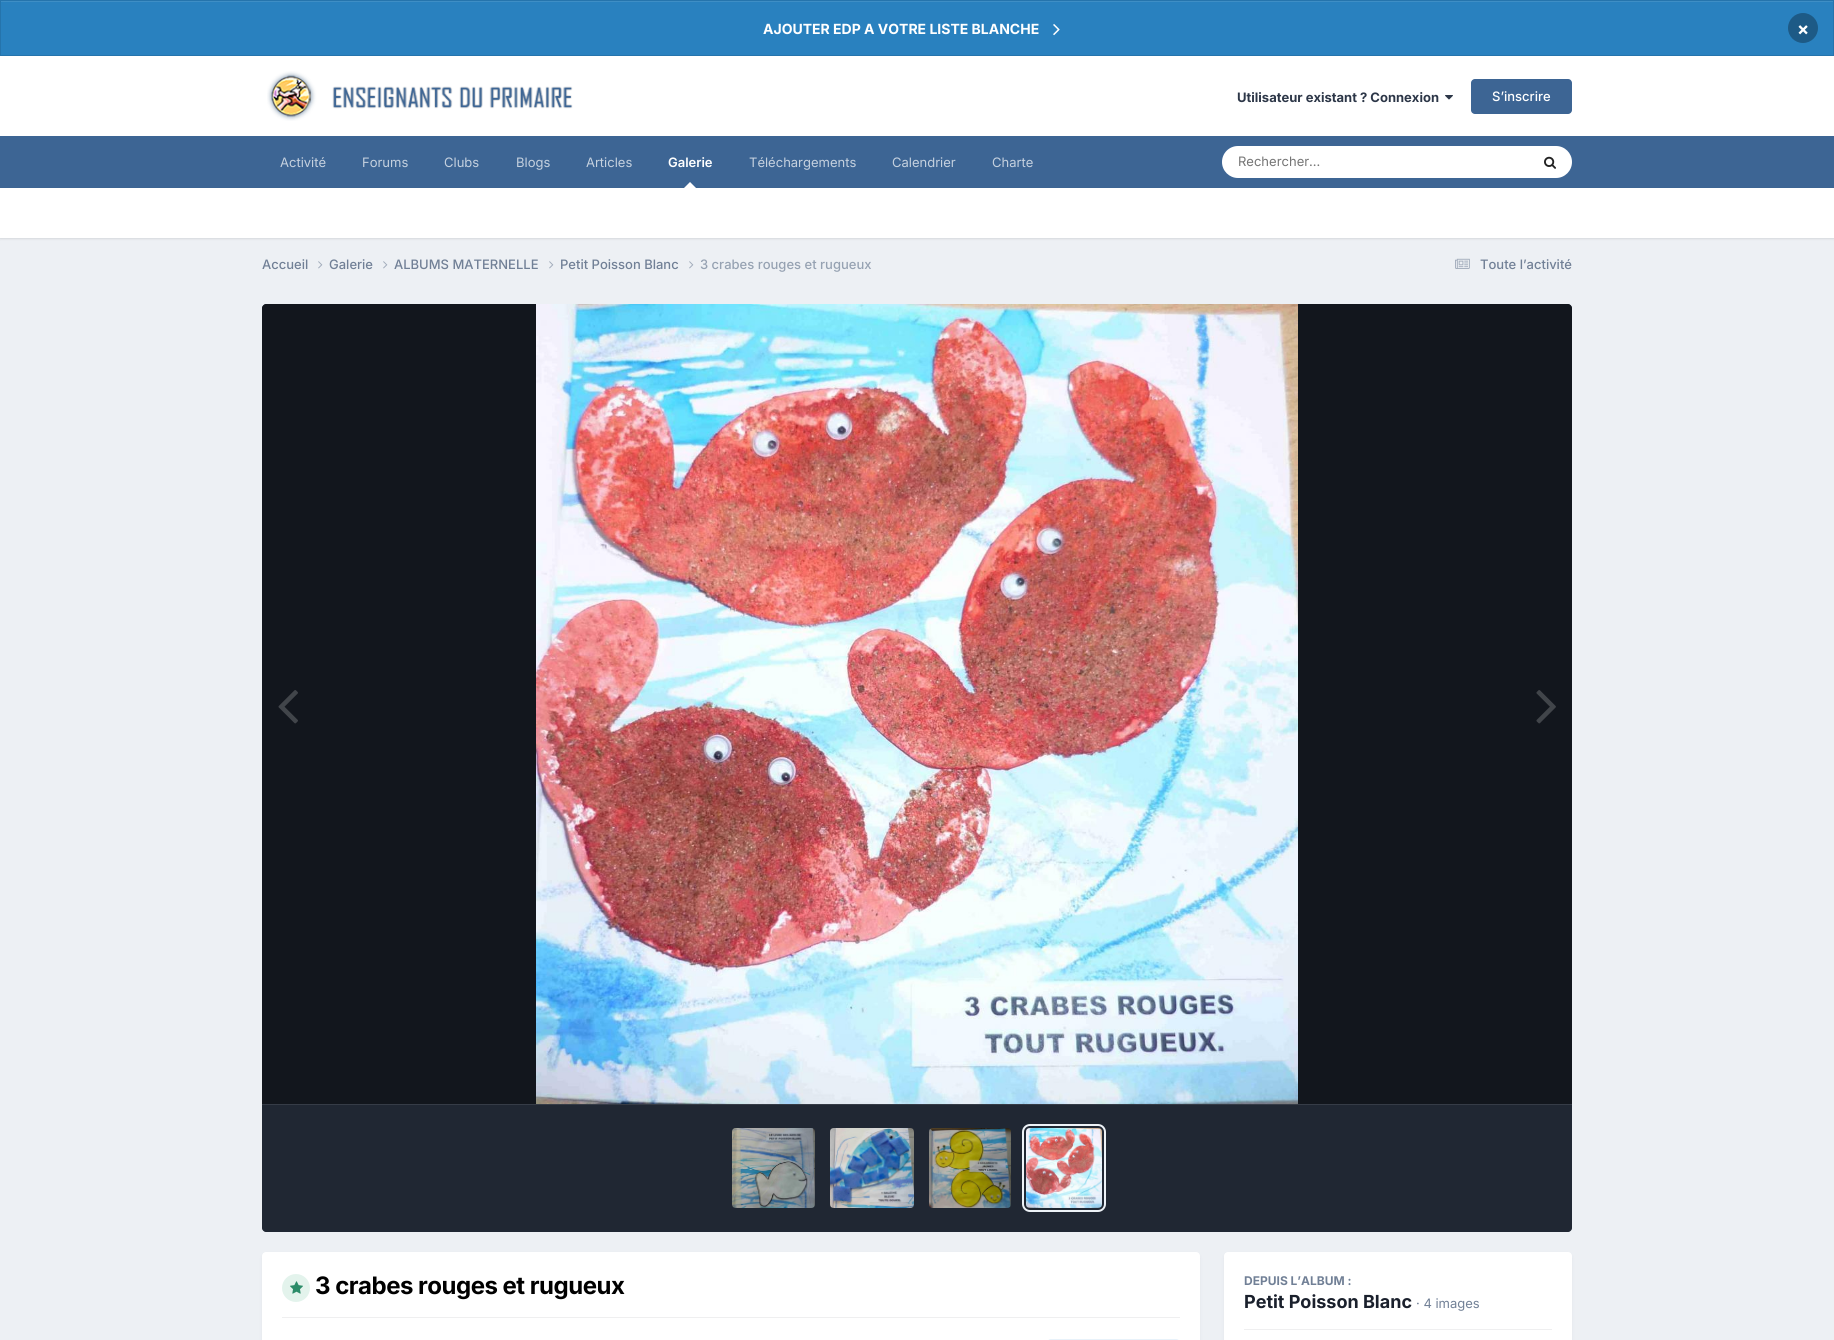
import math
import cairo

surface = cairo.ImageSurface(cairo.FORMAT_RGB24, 1834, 1340)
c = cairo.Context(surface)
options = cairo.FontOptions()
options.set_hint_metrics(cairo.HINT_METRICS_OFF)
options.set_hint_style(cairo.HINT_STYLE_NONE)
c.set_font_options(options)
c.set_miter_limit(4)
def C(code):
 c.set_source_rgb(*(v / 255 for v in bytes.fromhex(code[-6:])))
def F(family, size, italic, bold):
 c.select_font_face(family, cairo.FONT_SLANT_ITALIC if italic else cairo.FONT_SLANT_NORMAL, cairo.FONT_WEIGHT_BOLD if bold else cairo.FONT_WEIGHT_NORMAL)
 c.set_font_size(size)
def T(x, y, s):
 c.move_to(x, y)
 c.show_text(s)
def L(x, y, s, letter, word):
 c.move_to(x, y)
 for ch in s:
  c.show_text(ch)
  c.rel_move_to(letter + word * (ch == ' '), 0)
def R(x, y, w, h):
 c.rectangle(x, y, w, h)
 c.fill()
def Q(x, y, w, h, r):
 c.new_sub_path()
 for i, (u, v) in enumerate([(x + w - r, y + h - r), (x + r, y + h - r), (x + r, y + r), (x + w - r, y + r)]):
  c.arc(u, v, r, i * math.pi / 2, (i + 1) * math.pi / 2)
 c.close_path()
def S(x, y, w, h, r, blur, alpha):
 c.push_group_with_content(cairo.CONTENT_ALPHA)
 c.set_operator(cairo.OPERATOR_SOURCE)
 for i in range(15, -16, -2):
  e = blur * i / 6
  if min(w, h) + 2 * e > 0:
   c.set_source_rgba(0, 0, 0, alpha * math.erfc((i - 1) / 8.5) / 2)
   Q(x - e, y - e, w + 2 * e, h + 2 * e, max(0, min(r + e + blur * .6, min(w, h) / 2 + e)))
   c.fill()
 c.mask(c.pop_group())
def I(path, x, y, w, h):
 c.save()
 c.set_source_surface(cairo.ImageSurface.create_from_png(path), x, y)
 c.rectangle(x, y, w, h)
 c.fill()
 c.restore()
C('edf0f4')
c.paint()
C('2981bf')
R(1,2,1832,53)
C('3e8ec5')
R(1,1,1832,1)
c.rectangle(.5,.5,1833,55)
C('2574ac')
c.set_line_width(1)
c.stroke()
F('Inter',14,0,1)
C('ffffff')
T(763,34,'AJOUTER EDP A VOTRE LISTE BLANCHE')
I('1.png',1053,24,7,12)
C('1d5a86')
c.arc(1803,28,15,0,2 * math.pi)
c.fill()
F('Inter',18,0,1)
C('ffffff')
T(1797,35,'×')
R(0,56,1834,80)
I('2.png',267,71,306,50)
F('Inter',13,0,1)
C('2d3748')
T(1237,102,'Utilisateur existant ? Connexion')
I('3.png',1445,95,8,5)
C('3d6594')
Q(1471,79,101,35,4)
c.fill()
F('Inter Medium',13,0,0)
C('ffffff')
T(1492,101,'S’inscrire')
C('3d6594')
R(0,136,1834,52)
F('Inter',13,0,0)
C('c5d1df')
T(280,167,'Activité')
T(362,167,'Forums')
T(444,167,'Clubs')
T(516,167,'Blogs')
T(586,167,'Articles')
F('Inter SemiBold',13,0,0)
C('ffffff')
T(668,167,'Galerie')
C('000000')
S(0,189,1834,50,0,1,.1)
C('ffffff')
c.new_path()
c.move_to(696,188)
c.line_to(684,188)
c.line_to(690,182)
c.close_path()
c.fill()
F('Inter',13,0,0)
C('c5d1df')
T(749,167,'Téléchargements')
T(892,167,'Calendrier')
T(992,167,'Charte')
C('ffffff')
Q(1222,146,350,32,16)
c.fill()
C('757575')
T(1238,166,'Rechercher…')
I('4.png',1544,156,12,13)
C('ffffff')
R(0,188,1834,50)
F('Inter Medium',13,0,0)
C('718096')
T(262,269,'Accueil')
I('5.png',318,261,5,8)
T(329,269,'Galerie')
I('5.png',383,261,5,8)
T(394,269,'ALBUMS MATERNELLE')
I('5.png',549,261,5,8)
T(560,269,'Petit Poisson Blanc')
I('5.png',689,261,5,8)
C('96a2b2')
T(700,269,'3 crabes rouges et rugueux')
I('6.png',1455,258,15,11)
C('718096')
T(1480,269,'Toute l’activité')
C('2d3748')
c.new_path()
c.move_to(266,304)
c.line_to(1568,304)
c.curve_to(1570,304,1572,306,1572,308)
c.line_to(1572,1104)
c.line_to(262,1104)
c.line_to(262,308)
c.curve_to(262,306,264,304,266,304)
c.close_path()
c.fill()
c.set_source_rgba(0,0,0,0.6)
c.new_path()
c.move_to(266,304)
c.line_to(1568,304)
c.curve_to(1570,304,1572,306,1572,308)
c.line_to(1572,1104)
c.line_to(262,1104)
c.line_to(262,308)
c.curve_to(262,306,264,304,266,304)
c.close_path()
c.fill()
I('7.png',536,304,762,800)
I('8.png',278,690,20,34)
I('9.png',1536,690,20,34)
C('2d3748')
c.new_path()
c.move_to(262,1104)
c.line_to(1572,1104)
c.line_to(1572,1228)
c.curve_to(1572,1230,1570,1232,1568,1232)
c.line_to(266,1232)
c.curve_to(264,1232,262,1230,262,1228)
c.close_path()
c.fill()
c.set_source_rgba(0,0,0,0.3)
c.new_path()
c.move_to(262,1104)
c.line_to(1572,1104)
c.line_to(1572,1228)
c.curve_to(1572,1230,1570,1232,1568,1232)
c.line_to(266,1232)
c.curve_to(264,1232,262,1230,262,1228)
c.close_path()
c.fill()
C('363c47')
R(262,1104,1310,1)
I('10.png',732,1128,83,80)
I('11.png',830,1128,84,80)
I('12.png',929,1128,82,80)
Q(1023,1125,82,86,7)
C('edf2f7')
c.set_line_width(2)
c.stroke()
I('13.png',1026,1128,76,80)
C('2d3748')
S(263,1255,936,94,3,2,.1)
C('ffffff')
Q(262,1252,938,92,4)
c.fill()
C('e3f3ec')
c.arc(296,1288,14,0,2 * math.pi)
c.fill()
I('14.png',290,1281,13,13)
F('Inter',24,0,1)
C('000000')
L(315,1294,'3 crabes rouges et rugueux',-.5,0)
C('efeff0')
R(282,1317,898,1)
C('e8f2fa')
Q(1047,1339,133,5,4)
c.fill()
C('2d3748')
S(1225,1255,346,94,3,2,.1)
C('ffffff')
Q(1224,1252,348,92,4)
c.fill()
F('Inter',12,0,1)
C('718096')
T(1244,1285,'DEPUIS L’ALBUM :')
F('Inter',18,0,1)
C('1a202c')
T(1244,1308,'Petit Poisson Blanc')
F('Inter',13,0,0)
C('718096')
T(1416,1308,'· 4 images')
C('efeff0')
R(1244,1329,308,1)
surface.write_to_png('o.png')
